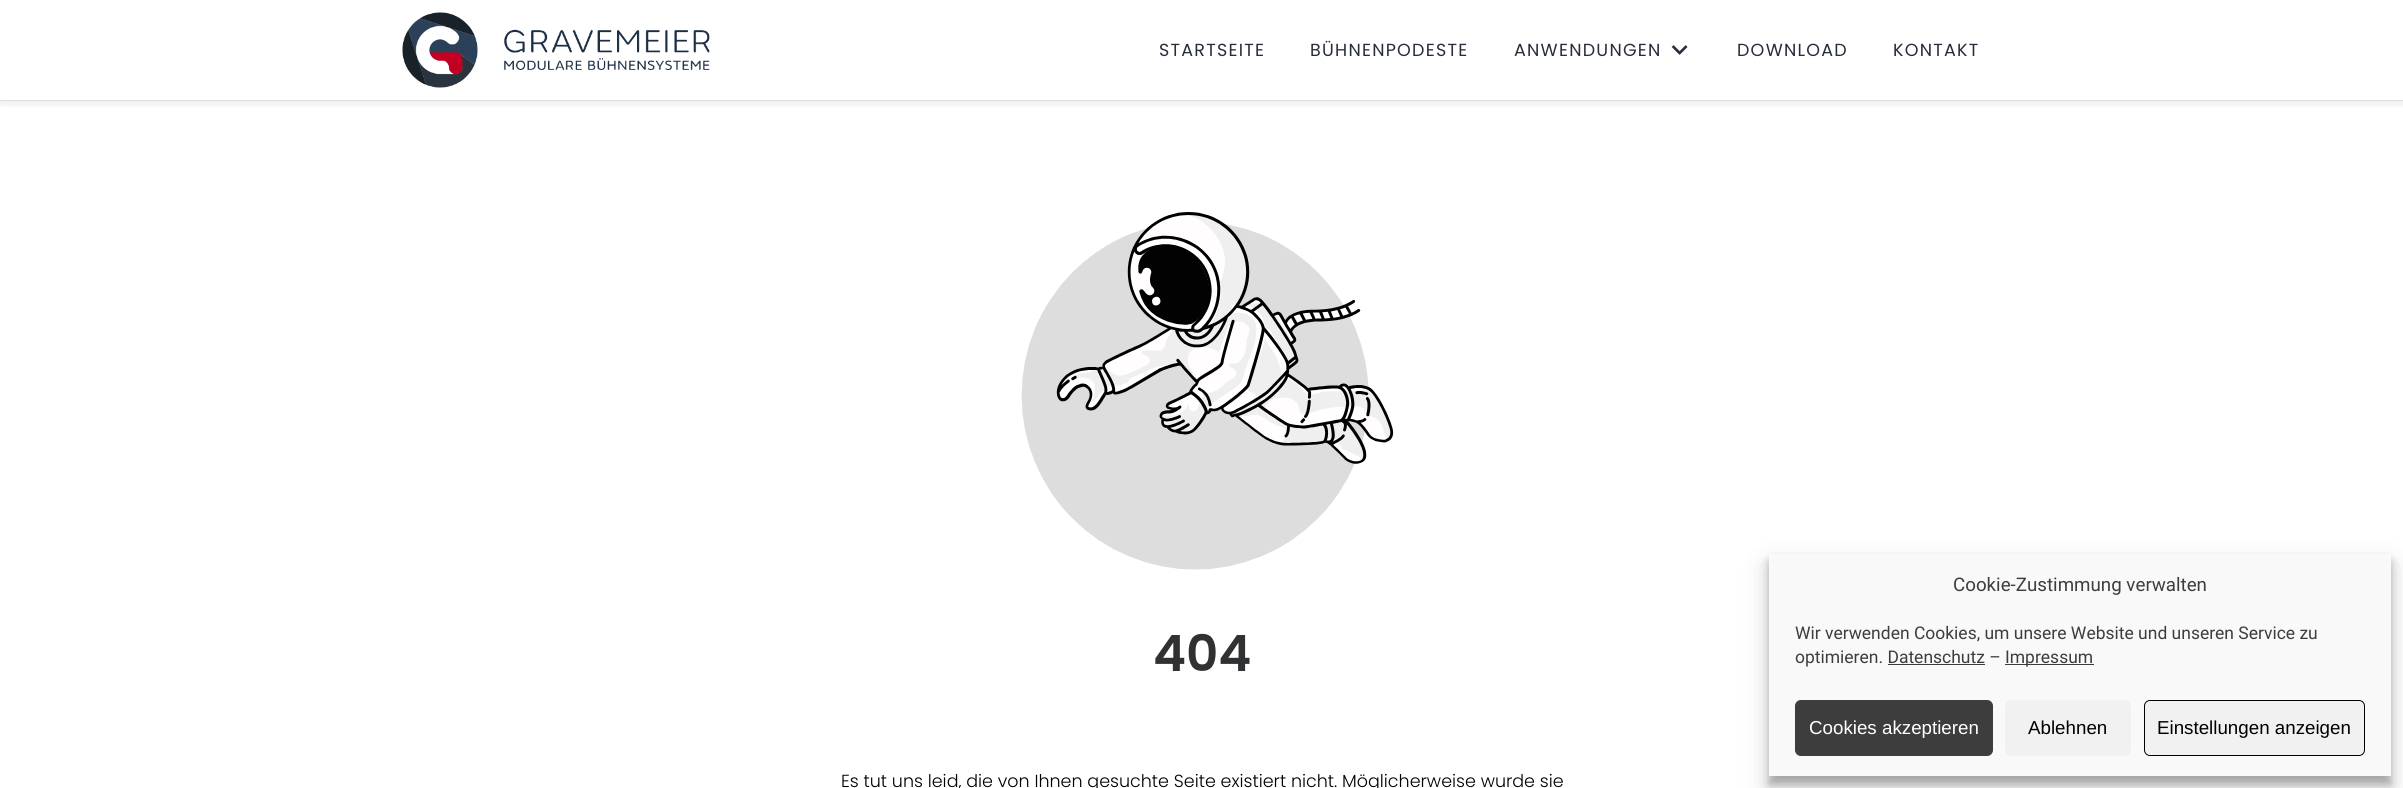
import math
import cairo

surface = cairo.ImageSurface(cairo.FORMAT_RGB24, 2403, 788)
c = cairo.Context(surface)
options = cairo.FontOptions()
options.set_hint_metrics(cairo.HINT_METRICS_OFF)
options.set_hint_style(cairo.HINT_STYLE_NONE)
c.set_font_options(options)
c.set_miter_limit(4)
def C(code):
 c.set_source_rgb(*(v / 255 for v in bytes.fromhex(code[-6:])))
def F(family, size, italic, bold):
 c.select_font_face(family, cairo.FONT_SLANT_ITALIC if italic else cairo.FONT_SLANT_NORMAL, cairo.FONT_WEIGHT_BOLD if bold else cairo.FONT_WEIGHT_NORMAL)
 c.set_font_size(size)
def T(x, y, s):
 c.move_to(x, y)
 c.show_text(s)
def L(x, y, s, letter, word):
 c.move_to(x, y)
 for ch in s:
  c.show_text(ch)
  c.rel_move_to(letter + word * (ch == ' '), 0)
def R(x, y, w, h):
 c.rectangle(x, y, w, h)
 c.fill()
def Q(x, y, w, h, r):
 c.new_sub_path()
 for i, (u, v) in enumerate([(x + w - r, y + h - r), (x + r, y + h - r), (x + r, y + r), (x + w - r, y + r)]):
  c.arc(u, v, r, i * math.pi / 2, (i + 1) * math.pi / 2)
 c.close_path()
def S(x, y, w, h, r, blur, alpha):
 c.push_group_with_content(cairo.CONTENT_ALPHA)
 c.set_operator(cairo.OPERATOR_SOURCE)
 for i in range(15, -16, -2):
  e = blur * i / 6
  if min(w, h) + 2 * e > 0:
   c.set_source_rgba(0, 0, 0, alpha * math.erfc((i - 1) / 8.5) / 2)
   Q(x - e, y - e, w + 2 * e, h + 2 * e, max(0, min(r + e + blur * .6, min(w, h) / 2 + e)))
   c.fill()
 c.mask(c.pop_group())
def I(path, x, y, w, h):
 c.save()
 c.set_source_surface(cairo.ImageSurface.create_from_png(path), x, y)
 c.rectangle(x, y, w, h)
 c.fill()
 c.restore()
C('ffffff')
c.paint()
c.save()
c.rectangle(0,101,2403,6)
c.clip()
C('000000')
S(0,3,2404,101,0,5,.08)
c.restore()
C('dedede')
R(0,100,2403,1)
I('1.png',402,12,308,76)
F('Poppins',17.5,0,0)
C('282d3b')
L(1159,56,'STARTSEITE',1.25,0)
L(1310,56,'BÜHNENPODESTE',1.25,0)
L(1514,56,'ANWENDUNGEN',1.25,0)
I('2.png',1671,45,17,10)
L(1737,56,'DOWNLOAD',1.25,0)
L(1893,56,'KONTAKT',1.25,0)
I('3.png',1021,212,373,358)
F('Poppins SemiBold',50,0,0)
C('303133')
T(1153,671,'404')
F('Poppins Light',17.5,0,0)
C('000000')
T(841,787,'Es tut uns leid, die von Ihnen gesuchte Seite existiert nicht. Möglicherweise wurde sie')
C('000000')
S(1769,561,622,223,0,4,.23)
S(1769,566,622,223,0,12.5,.19)
C('f9f9f9')
R(1769,554,622,222)
F('Roboto',18.75,0,0)
C('3d3d3d')
T(1953,591,'Cookie-Zustimmung verwalten')
F('Roboto',17.5,0,0)
T(1795,639,'Wir verwenden Cookies, um unsere Website und unseren Service zu')
T(1795,663,'optimieren. Datenschutz –')
R(1888,664,97,1)
R(2005,664,89,1)
T(2005,663,'Impressum')
Q(1795.5,700.5,197,55,5.5)
c.fill_preserve()
c.set_line_width(1)
c.stroke()
F('Liberation Sans',18.75,0,0)
C('ffffff')
T(1809,734,'Cookies akzeptieren')
C('f1f1f1')
Q(2005,700,126,56,6)
c.fill()
C('000000')
T(2028,734,'Ablehnen')
C('f1f1f1')
Q(2144.5,700.5,220,55,5.5)
c.fill_preserve()
C('000000')
c.stroke()
T(2157,734,'Einstellungen anzeigen')
surface.write_to_png('o.png')
